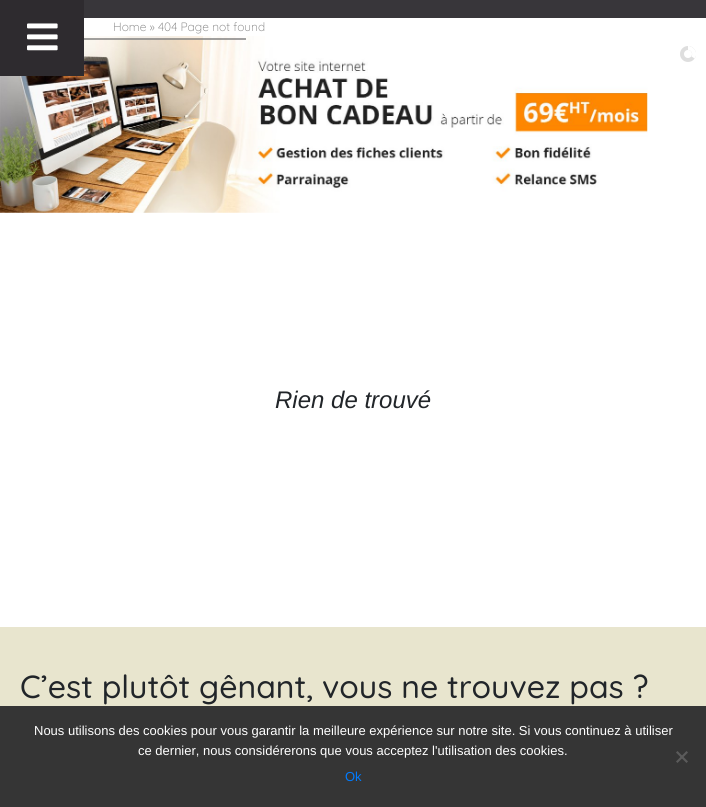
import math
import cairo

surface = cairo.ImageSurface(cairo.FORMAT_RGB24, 706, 807)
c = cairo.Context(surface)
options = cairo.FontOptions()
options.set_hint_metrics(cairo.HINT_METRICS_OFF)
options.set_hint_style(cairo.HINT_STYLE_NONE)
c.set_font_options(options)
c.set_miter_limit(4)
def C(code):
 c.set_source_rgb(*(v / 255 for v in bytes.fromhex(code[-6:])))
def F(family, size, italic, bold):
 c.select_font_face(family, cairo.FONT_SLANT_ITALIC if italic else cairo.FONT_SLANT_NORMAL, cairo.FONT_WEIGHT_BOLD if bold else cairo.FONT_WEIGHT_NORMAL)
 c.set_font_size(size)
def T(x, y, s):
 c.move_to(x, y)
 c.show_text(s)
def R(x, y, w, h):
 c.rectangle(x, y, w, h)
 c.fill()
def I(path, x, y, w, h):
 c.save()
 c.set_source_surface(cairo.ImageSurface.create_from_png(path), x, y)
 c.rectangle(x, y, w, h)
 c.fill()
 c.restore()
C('ffffff')
c.paint()
I('2.png',0,36,648,177)
C('2e2b2f')
R(0,0,84,76)
I('1.png',27,23,31,28)
C('38363a')
R(84,0,622,18)
F('Quicksand Light',12,0,0)
C('777777')
T(113,31,'Home » 404 Page not found')
c.set_source_rgba(1,1,1,0.55)
R(84,36,162,4)
c.set_source_rgba(0.333,0.333,0.333,0.55)
R(84,38,162,2)
c.new_path()
c.arc(688,54,6,0,2 * math.pi)
C('dedede')
c.set_line_width(4)
c.stroke()
c.save()
c.rectangle(688,46,8,16)
c.clip()
c.new_path()
c.move_to(699,52)
c.line_to(694.5,58.5)
c.line_to(681.5,49.5)
c.line_to(686,43)
c.close_path()
c.clip()
c.new_path()
c.move_to(693,57.5)
c.curve_to(688.5,64,678.5,57,683,50.5)
c.curve_to(687.5,44,697.5,51,693,57.5)
c.close_path()
C('ffffff')
c.stroke()
c.restore()
F('Liberation Sans',24,1,0)
C('212529')
T(275,408,'Rien de trouvé')
C('e8e5ce')
R(0,627,706,79)
F('Quicksand Medium',32,0,0)
C('212529')
T(20,698,'C’est plutôt gênant, vous ne trouvez pas ?')
C('353535')
R(0,706,706,101)
F('Liberation Sans',13,0,0)
C('ffffff')
T(34,735,'Nous utilisons des cookies pour vous garantir la meilleure expérience sur notre site. Si vous continuez à utiliser')
T(138,755,'ce dernier, nous considérerons que vous acceptez l\'utilisation des cookies.')
C('5b5b5b')
c.new_path()
c.move_to(686.5,751)
c.line_to(688,752.5)
c.line_to(677.5,763)
c.line_to(676,761.5)
c.close_path()
c.fill()
c.new_path()
c.move_to(676,752.5)
c.line_to(677.5,751)
c.line_to(688,761.5)
c.line_to(686.5,763)
c.close_path()
c.fill()
C('007bff')
T(345,781,'Ok')
surface.write_to_png('o.png')
